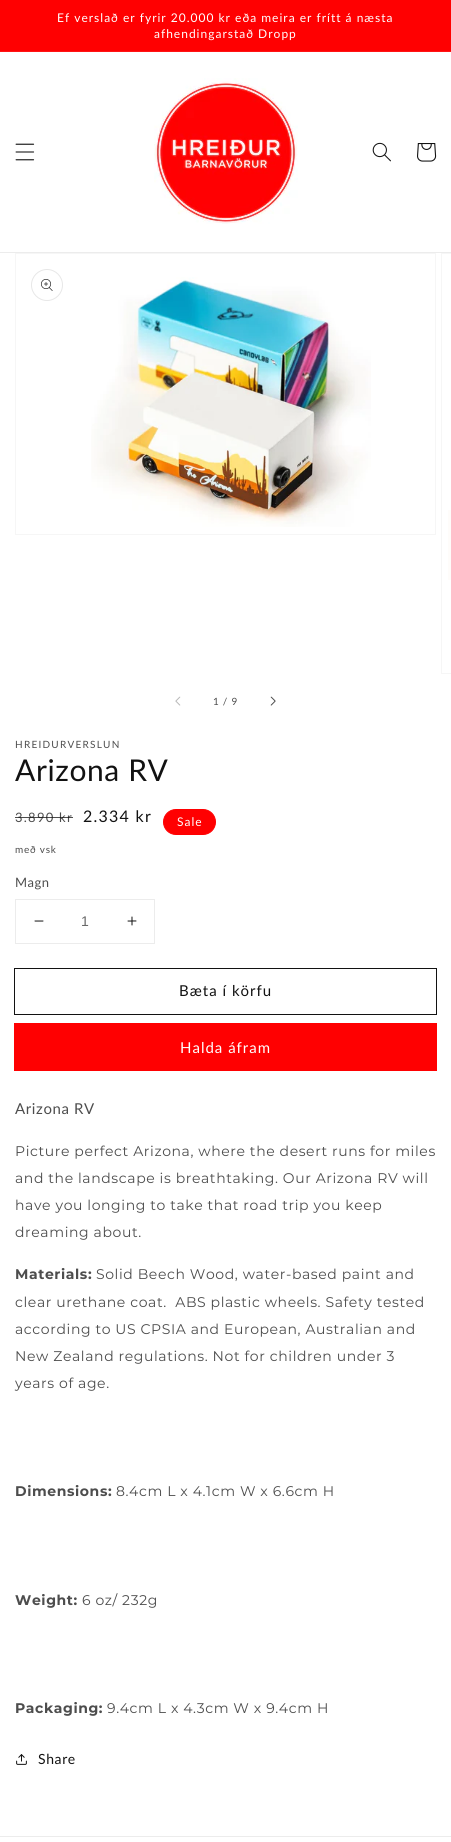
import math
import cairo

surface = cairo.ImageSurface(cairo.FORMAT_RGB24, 451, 1842)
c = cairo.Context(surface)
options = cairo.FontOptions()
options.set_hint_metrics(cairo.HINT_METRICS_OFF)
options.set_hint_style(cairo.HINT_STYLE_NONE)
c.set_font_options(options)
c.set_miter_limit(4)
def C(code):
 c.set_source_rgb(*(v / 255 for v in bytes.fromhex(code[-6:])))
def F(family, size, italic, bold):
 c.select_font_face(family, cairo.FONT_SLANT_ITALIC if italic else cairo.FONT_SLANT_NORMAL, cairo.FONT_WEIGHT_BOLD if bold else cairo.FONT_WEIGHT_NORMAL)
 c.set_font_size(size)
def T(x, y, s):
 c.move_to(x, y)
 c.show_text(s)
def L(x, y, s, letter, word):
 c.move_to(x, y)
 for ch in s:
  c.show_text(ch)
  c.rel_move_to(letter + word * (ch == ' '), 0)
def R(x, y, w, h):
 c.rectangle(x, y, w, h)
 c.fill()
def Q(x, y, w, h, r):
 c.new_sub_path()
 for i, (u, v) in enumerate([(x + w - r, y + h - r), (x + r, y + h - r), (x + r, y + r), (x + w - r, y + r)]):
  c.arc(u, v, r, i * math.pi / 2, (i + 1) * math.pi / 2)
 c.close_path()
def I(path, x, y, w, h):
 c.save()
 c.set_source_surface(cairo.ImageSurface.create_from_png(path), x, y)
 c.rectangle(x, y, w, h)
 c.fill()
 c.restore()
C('ffffff')
c.paint()
C('ff0001')
R(0,0,451,51)
C('ff1415')
R(0,51,451,1)
F('Lato',12,0,0)
C('ffffff')
L(57,22,'Ef verslað er fyrir 20.000 kr eða meira er frítt á næsta',1,0)
L(154,38,'afhendingarstað Dropp',1,0)
C('ececec')
R(0,252,451,1)
I('1.png',15,143,20,18)
I('2.png',154,78,144,146)
I('3.png',372,142,19,20)
I('4.png',417,143,20,19)
c.rectangle(15.5,253.5,420,281)
C('f6f6f6')
c.set_line_width(1)
c.stroke()
c.arc(47,285,15.5,0,2 * math.pi)
C('e7e7e7')
c.stroke()
I('5.png',41,279,12,12)
I('6.png',91,277,280,250)
c.rectangle(441.5,253.5,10,420)
C('f6f6f6')
c.stroke()
C('fefcfa')
R(448,510,3,70)
I('7.png',175,696,6,10)
F('Lato',10,0,0)
C('4d4d4d')
L(213,705,'1 / 9',.75,0)
I('8.png',270,696,6,10)
L(15,748,'HREIDURVERSLUN',1.25,0)
F('Lato',30,0,0)
C('121212')
L(15,781,'Arizona RV',.6,0)
F('Lato',13,0,0)
C('4d4d4d')
L(15,822,'3.890 kr',1.25,0)
c.set_source_rgba(0.071,0.071,0.071,0.75)
R(15,817,58,1)
F('Lato',16,0,0)
C('121212')
L(83,822,'2.334 kr',1.25,0)
C('ff0001')
Q(163.5,809.5,52,25,12.5)
c.fill_preserve()
c.stroke()
F('Lato',12,0,0)
C('ffffff')
L(177,826,'Sale',1,0)
F('Lato',10,0,0)
C('4d4d4d')
L(15,853,'með vsk',.75,0)
F('Lato',13,0,0)
L(15,887,'Magn',.5,0)
c.rectangle(15.5,899.5,139,44)
C('ececec')
c.stroke()
I('9.png',34,920,10,2)
F('Liberation Sans',14,0,0)
C('686868')
T(81,926,'1')
I('10.png',127,916,10,10)
c.rectangle(14.5,968.5,422,46)
C('121212')
c.stroke()
F('Lato',15,0,0)
L(179,996,'Bæta í körfu',1,0)
c.rectangle(14.5,1023.5,422,47)
C('ff0001')
c.stroke()
R(15,1024,421,46)
C('ffffff')
L(180,1053,'Halda áfram',1,0)
C('4d4d4d')
L(15,1114,'Arizona RV',.6,0)
F('Montserrat',14,0,0)
L(15,1156,'Picture perfect Arizona, where the desert runs for miles',.6,0)
L(15,1183,'and the landscape is breathtaking. Our Arizona RV will',.6,0)
L(15,1210,'have you longing to take that road trip you keep',.6,0)
L(15,1237,'dreaming about.',.6,0)
F('Montserrat',14,0,1)
L(15,1279,'Materials:',.6,0)
F('Montserrat',14,0,0)
L(96,1279,'Solid Beech Wood, water-based paint and',.6,0)
L(15,1307,'clear urethane coat.  ABS plastic wheels. Safety tested',.6,0)
L(15,1334,'according to US CPSIA and European, Australian and',.6,0)
L(15,1361,'New Zealand regulations. Not for children under 3',.6,0)
L(15,1388,'years of age.',.6,0)
F('Montserrat',14,0,1)
L(15,1496,'Dimensions:',.6,0)
F('Montserrat',14,0,0)
L(116,1496,'8.4cm L x 4.1cm W x 6.6cm H',.6,0)
F('Montserrat',14,0,1)
L(15,1605,'Weight:',.6,0)
F('Montserrat',14,0,0)
L(82,1605,'6 oz/ 232g',.6,0)
F('Montserrat',14,0,1)
L(15,1713,'Packaging:',.6,0)
F('Montserrat',14,0,0)
L(107,1713,'9.4cm L x 4.3cm W x 9.4cm H',.6,0)
I('11.png',16,1754,11,11)
F('Lato',14,0,0)
C('121212')
L(38,1764,'Share',.6,0)
C('ececec')
R(0,1836,451,1)
surface.write_to_png('o.png')
